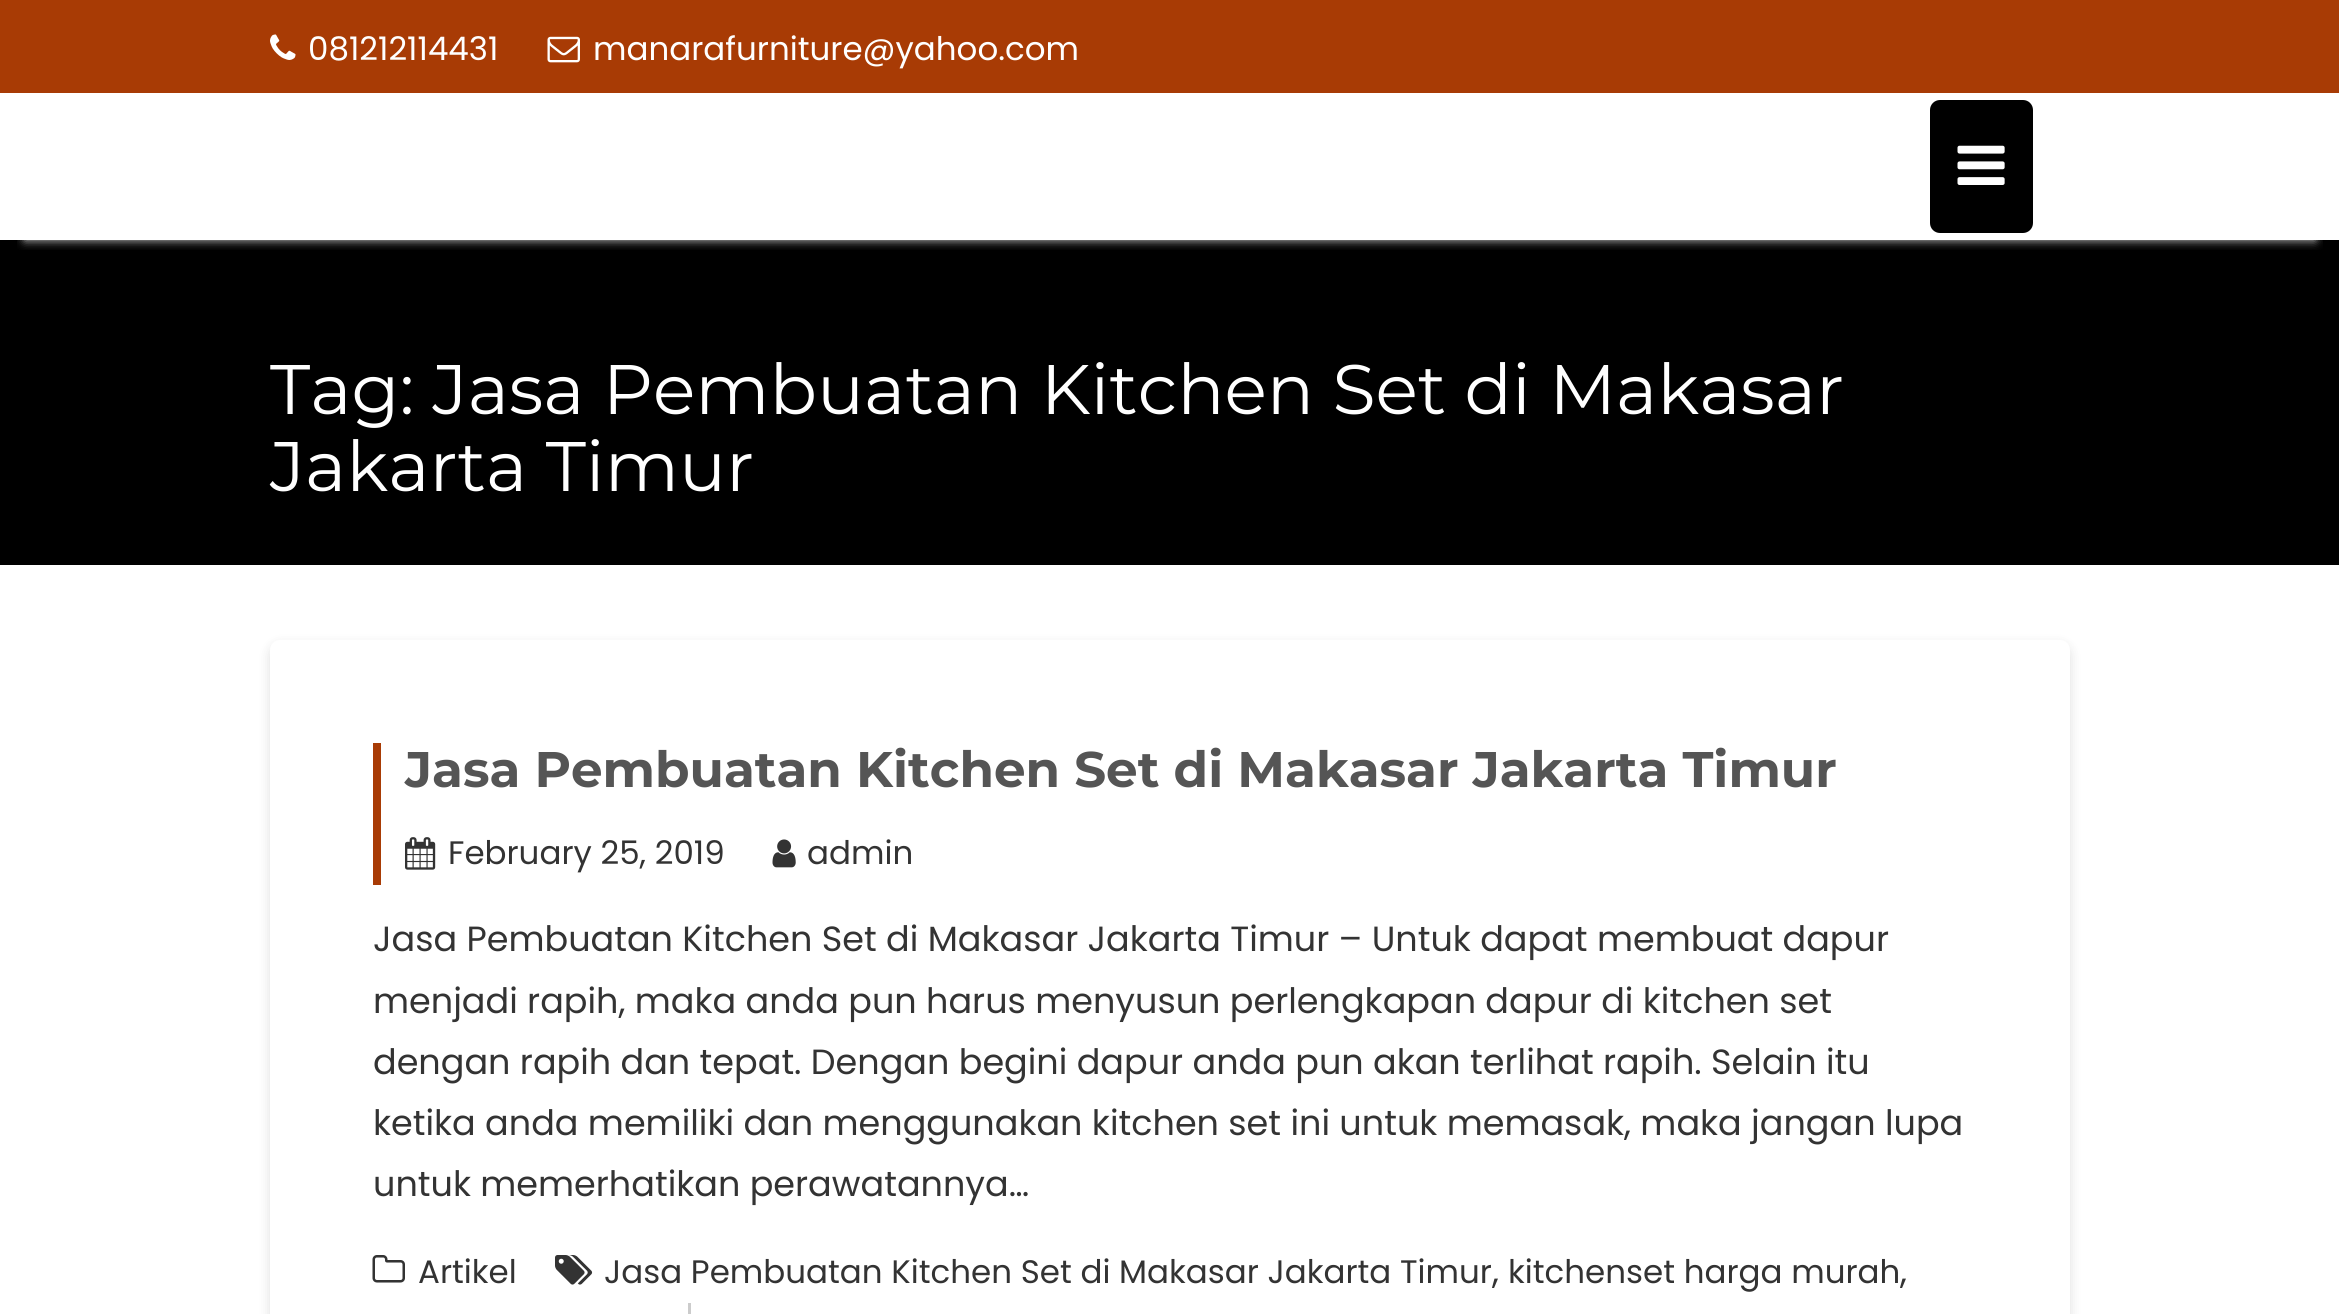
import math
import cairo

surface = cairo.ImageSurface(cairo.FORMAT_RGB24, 2339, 1314)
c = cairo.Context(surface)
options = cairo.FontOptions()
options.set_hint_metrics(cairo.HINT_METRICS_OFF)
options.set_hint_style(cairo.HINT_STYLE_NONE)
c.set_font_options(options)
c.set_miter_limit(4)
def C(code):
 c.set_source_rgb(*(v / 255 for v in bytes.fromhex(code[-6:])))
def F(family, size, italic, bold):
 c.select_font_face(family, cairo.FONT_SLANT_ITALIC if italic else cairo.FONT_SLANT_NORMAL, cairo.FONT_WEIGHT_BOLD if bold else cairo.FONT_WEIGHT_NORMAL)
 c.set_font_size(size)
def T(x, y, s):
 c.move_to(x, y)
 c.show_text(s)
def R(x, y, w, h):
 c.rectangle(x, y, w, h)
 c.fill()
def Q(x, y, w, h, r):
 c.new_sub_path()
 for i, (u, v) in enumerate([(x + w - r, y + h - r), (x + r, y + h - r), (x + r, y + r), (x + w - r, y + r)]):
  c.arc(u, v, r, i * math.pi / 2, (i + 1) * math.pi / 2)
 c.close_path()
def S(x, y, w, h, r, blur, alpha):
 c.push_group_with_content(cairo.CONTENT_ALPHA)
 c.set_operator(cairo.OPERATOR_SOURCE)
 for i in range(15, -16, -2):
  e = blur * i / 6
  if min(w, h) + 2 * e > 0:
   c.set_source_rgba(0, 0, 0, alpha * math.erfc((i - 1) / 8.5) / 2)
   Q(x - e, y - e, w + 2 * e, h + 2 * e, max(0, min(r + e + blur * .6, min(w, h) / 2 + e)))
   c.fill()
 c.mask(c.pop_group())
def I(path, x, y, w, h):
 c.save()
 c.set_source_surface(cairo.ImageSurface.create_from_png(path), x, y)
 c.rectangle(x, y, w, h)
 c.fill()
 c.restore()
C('ffffff')
c.paint()
C('a83b05')
R(0,0,2339,93)
I('1.png',270,34,26,26)
F('Poppins',32.5,0,0)
C('ffffff')
T(308,60,'081212114431')
I('2.png',547,36,33,27)
T(593,60,'manarafurniture@yahoo.com')
C('000000')
R(0,240,2339,325)
c.save()
c.rectangle(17,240,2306,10)
c.clip()
C('eeeeee')
S(25,143,2290,97,0,5,.9)
c.restore()
Q(1930,100,103,133,10)
c.fill()
I('3.png',1957,145,48,40)
F('Montserrat',70,0,0)
C('ffffff')
T(270,414,'Tag: Jasa Pembuatan Kitchen Set di Makasar')
T(270,491,'Jakarta Timur')
C('000000')
S(270,645,1800,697,10,6,.13)
C('ffffff')
Q(270,640,1800,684,10)
c.fill()
C('a83b05')
R(373,743,8,142)
F('Montserrat',50,0,1)
C('555555')
T(405,787,'Jasa Pembuatan Kitchen Set di Makasar Jakarta Timur')
I('4.png',405,837,31,33)
F('Poppins',32.5,0,0)
C('333333')
T(448,864,'February 25, 2019')
I('5.png',772,839,24,29)
T(807,864,'admin')
F('Poppins',35,0,0)
T(373,951,'Jasa Pembuatan Kitchen Set di Makasar Jakarta Timur – Untuk dapat membuat dapur')
T(373,1013,'menjadi rapih, maka anda pun harus menyusun perlengkapan dapur di kitchen set')
T(373,1074,'dengan rapih dan tepat. Dengan begini dapur anda pun akan terlihat rapih. Selain itu')
T(373,1135,'ketika anda memiliki dan menggunakan kitchen set ini untuk memasak, maka jangan lupa')
T(373,1196,'untuk memerhatikan perawatannya…')
I('6.png',372,1255,33,28)
F('Poppins',32.5,0,0)
T(418,1283,'Artikel')
I('7.png',555,1255,38,30)
T(604,1283,'Jasa Pembuatan Kitchen Set di Makasar Jakarta Timur')
F('Poppins',35,0,0)
T(1492,1283,',')
F('Poppins',32.5,0,0)
T(1508,1283,'kitchenset harga murah')
F('Poppins',35,0,0)
T(1900,1283,',')
C('cccccc')
R(688,1303,3,11)
surface.write_to_png('o.png')
